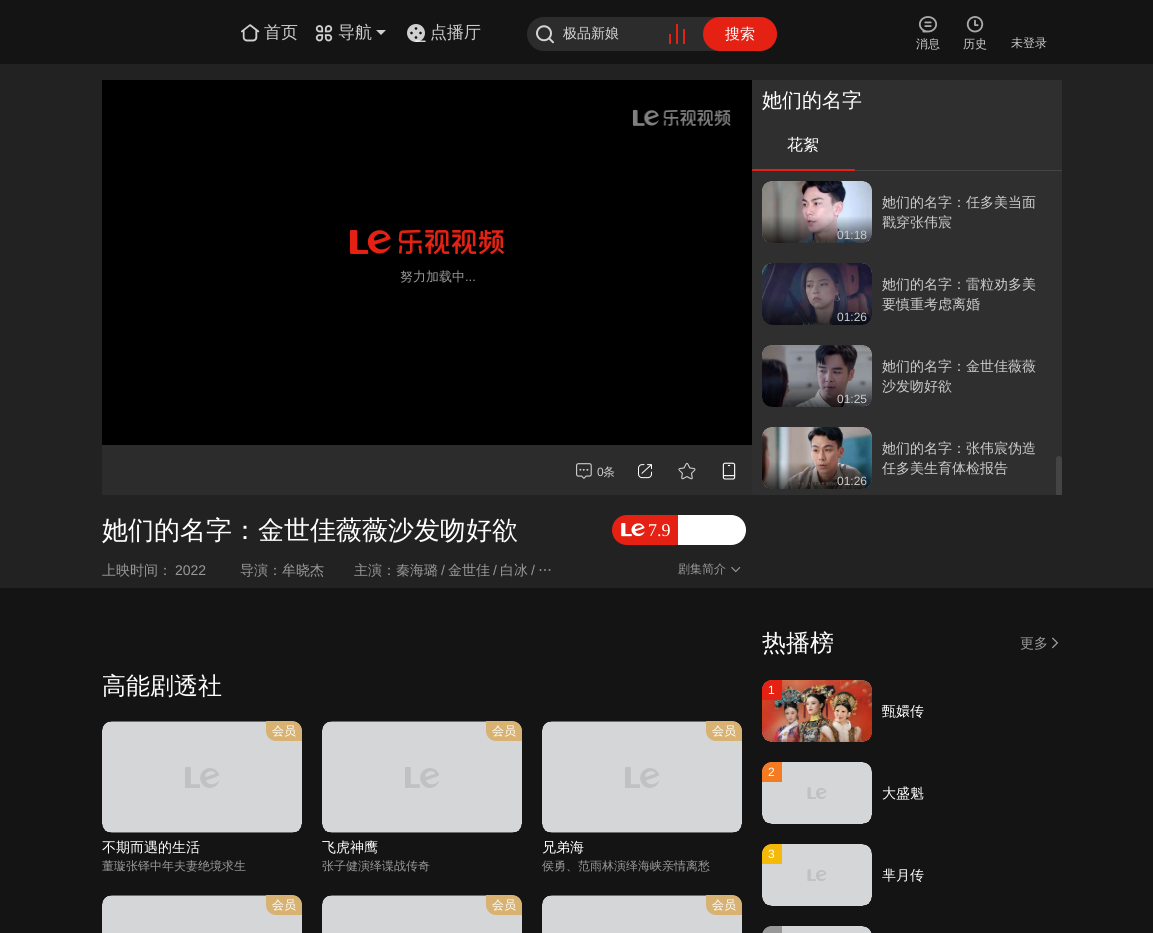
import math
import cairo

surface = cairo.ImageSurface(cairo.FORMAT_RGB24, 1153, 933)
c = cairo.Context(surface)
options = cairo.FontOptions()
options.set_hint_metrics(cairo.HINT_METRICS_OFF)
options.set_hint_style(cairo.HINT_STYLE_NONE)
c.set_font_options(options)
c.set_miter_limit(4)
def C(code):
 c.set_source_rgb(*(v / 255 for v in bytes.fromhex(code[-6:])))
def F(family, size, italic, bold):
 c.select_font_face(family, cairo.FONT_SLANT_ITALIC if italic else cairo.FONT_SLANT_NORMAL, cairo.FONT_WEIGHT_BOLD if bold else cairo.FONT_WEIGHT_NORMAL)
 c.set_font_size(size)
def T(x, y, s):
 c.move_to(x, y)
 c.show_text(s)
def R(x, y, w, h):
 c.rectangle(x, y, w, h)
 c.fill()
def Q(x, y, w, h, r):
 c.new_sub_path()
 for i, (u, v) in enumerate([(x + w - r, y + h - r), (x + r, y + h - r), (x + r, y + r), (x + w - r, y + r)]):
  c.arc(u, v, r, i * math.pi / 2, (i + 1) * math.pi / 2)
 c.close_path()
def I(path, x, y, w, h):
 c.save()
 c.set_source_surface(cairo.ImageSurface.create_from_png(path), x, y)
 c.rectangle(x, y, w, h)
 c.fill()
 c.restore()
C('141414')
c.paint()
I('1.png',241,24,19,18)
F('WenQuanYi Zen Hei Medium',17,0,0)
C('cccccc')
T(264,38,'首页')
I('2.png',315,25,18,17)
T(338,38,'导航')
C('d0d0d0')
c.new_path()
c.move_to(376,30)
c.line_to(386,30)
c.line_to(381,35)
c.close_path()
c.fill()
I('3.png',407,24,19,18)
C('cccccc')
T(430,38,'点播厅')
C('2c2c2c')
Q(527,17,250,34,17)
c.fill()
I('4.png',536,25,18,19)
F('WenQuanYi Zen Hei Medium',14,0,0)
C('d5d5d5')
T(563,38,'极品新娘')
C('e42112')
R(669,34,2,10)
R(676,24,2,20)
R(683,29,2,15)
Q(703,17,74,34,17)
c.fill()
F('WenQuanYi Zen Hei Medium',15,0,0)
C('ffffff')
T(725,39,'搜索')
I('5.png',918,16,20,17)
F('WenQuanYi Zen Hei Medium',12,0,0)
C('cccccc')
T(916,48,'消息')
I('6.png',966,16,18,17)
T(963,48,'历史')
T(1011,47,'未登录')
C('222222')
R(0,64,1153,524)
C('000000')
R(102,80,650,365)
I('7.png',632,109,99,17)
I('8.png',350,230,154,25)
F('WenQuanYi Zen Hei Medium',13,0,0)
C('999999')
T(400,281,'努力加载中')
F('Liberation Sans',13,0,0)
T(465,281,'...')
C('2c2c2c')
R(102,445,650,50)
I('9.png',576,463,16,16)
F('Liberation Sans',12,0,0)
C('cccccc')
T(597,476,'0')
F('WenQuanYi Zen Hei Medium',12,0,0)
T(603,476,'条')
I('10.png',638,464,14,15)
I('11.png',678,462,18,18)
I('12.png',722,462,14,18)
C('2f2f2f')
R(752,80,310,415)
F('WenQuanYi Zen Hei Medium',20,0,0)
C('ffffff')
T(762,107,'她们的名字')
C('444444')
R(752,170,310,1)
F('WenQuanYi Zen Hei Medium',16,0,0)
C('ffffff')
T(787,150,'花絮')
C('e42112')
Q(752,169,103,2,1)
c.fill()
F('WenQuanYi Zen Hei Medium',14,0,0)
C('cccccc')
T(882,207,'她们的名字：任多美当面')
T(882,227,'戳穿张伟宸')
I('13.png',762,181,110,62)
I('14.png',762,181,110,62)
gradient = cairo.LinearGradient(817,243,817,216)
gradient.add_color_stop_rgba(0,0,0,0,.7)
gradient.add_color_stop_rgba(1,0,0,0,0)
c.set_source(gradient)
c.new_path()
c.move_to(762,216)
c.line_to(872,216)
c.line_to(872,233)
c.curve_to(872,238.5,867.5,243,862,243)
c.line_to(772,243)
c.curve_to(766.5,243,762,238.5,762,233)
c.close_path()
c.fill()
F('Liberation Sans',12,0,0)
C('cccccc')
T(837,239,'01:18')
F('WenQuanYi Zen Hei Medium',14,0,0)
T(882,289,'她们的名字：雷粒劝多美')
T(882,309,'要慎重考虑离婚')
I('15.png',762,263,110,62)
I('16.png',762,263,110,62)
gradient = cairo.LinearGradient(817,325,817,298)
gradient.add_color_stop_rgba(0,0,0,0,.7)
gradient.add_color_stop_rgba(1,0,0,0,0)
c.set_source(gradient)
c.new_path()
c.move_to(762,298)
c.line_to(872,298)
c.line_to(872,315)
c.curve_to(872,320.5,867.5,325,862,325)
c.line_to(772,325)
c.curve_to(766.5,325,762,320.5,762,315)
c.close_path()
c.fill()
F('Liberation Sans',12,0,0)
C('cccccc')
T(837,321,'01:26')
F('WenQuanYi Zen Hei Medium',14,0,0)
T(882,371,'她们的名字：金世佳薇薇')
T(882,391,'沙发吻好欲')
I('15.png',762,345,110,62)
I('17.png',762,345,110,62)
gradient = cairo.LinearGradient(817,407,817,380)
gradient.add_color_stop_rgba(0,0,0,0,.7)
gradient.add_color_stop_rgba(1,0,0,0,0)
c.set_source(gradient)
c.new_path()
c.move_to(762,380)
c.line_to(872,380)
c.line_to(872,397)
c.curve_to(872,402.5,867.5,407,862,407)
c.line_to(772,407)
c.curve_to(766.5,407,762,402.5,762,397)
c.close_path()
c.fill()
F('Liberation Sans',12,0,0)
C('cccccc')
T(837,403,'01:25')
F('WenQuanYi Zen Hei Medium',14,0,0)
T(882,453,'她们的名字：张伟宸伪造')
T(882,473,'任多美生育体检报告')
I('13.png',762,427,110,62)
I('18.png',762,427,110,62)
gradient = cairo.LinearGradient(817,489,817,462)
gradient.add_color_stop_rgba(0,0,0,0,.7)
gradient.add_color_stop_rgba(1,0,0,0,0)
c.set_source(gradient)
c.new_path()
c.move_to(762,462)
c.line_to(872,462)
c.line_to(872,479)
c.curve_to(872,484.5,867.5,489,862,489)
c.line_to(772,489)
c.curve_to(766.5,489,762,484.5,762,479)
c.close_path()
c.fill()
F('Liberation Sans',12,0,0)
C('cccccc')
T(837,485,'01:26')
C('444444')
c.new_path()
c.move_to(1059,456)
c.curve_to(1060.5,456,1062,457.5,1062,459)
c.line_to(1062,495)
c.line_to(1056,495)
c.line_to(1056,459)
c.curve_to(1056,457.5,1057.5,456,1059,456)
c.close_path()
c.fill()
F('WenQuanYi Zen Hei Medium',26,0,0)
C('ffffff')
T(102,539,'她们的名字：金世佳薇薇沙发吻好欲')
F('WenQuanYi Zen Hei Medium',14,0,0)
C('999999')
T(102,575,'上映时间：')
F('Liberation Sans',14,0,0)
T(175,575,'2022')
F('WenQuanYi Zen Hei Medium',14,0,0)
T(240,575,'导演：牟晓杰')
T(354,575,'主演：秦海璐')
F('Liberation Sans',14,0,0)
T(441,575,'/')
F('WenQuanYi Zen Hei Medium',14,0,0)
T(448,575,'金世佳')
F('Liberation Sans',14,0,0)
T(493,575,'/')
F('WenQuanYi Zen Hei Medium',14,0,0)
T(500,575,'白冰')
F('Liberation Sans',14,0,0)
T(531,575,'/')
F('WenQuanYi Zen Hei Medium',14,0,0)
T(538,575,'…')
C('e42112')
c.new_path()
c.move_to(627,515)
c.line_to(678,515)
c.line_to(678,545)
c.line_to(627,545)
c.curve_to(618.5,545,612,538.5,612,530)
c.curve_to(612,521.5,618.5,515,627,515)
c.close_path()
c.fill()
I('19.png',621,523,24,14)
F('Liberation Serif',18,0,0)
C('ffffff')
T(648,536,'7.9')
c.new_path()
c.move_to(678,515)
c.line_to(731,515)
c.curve_to(739.5,515,746,521.5,746,530)
c.curve_to(746,538.5,739.5,545,731,545)
c.line_to(678,545)
c.close_path()
c.fill()
F('WenQuanYi Zen Hei Medium',12,0,0)
C('999999')
T(678,573,'剧集简介')
I('20.png',731,567,10,6)
F('WenQuanYi Zen Hei Medium',24,0,0)
C('ffffff')
T(102,694,'高能剧透社')
I('21.png',102,721,200,112)
C('d7b272')
c.new_path()
c.move_to(266,721)
c.line_to(292,721)
c.curve_to(297.5,721,302,725.5,302,731)
c.line_to(302,741)
c.line_to(276,741)
c.curve_to(270.5,741,266,736.5,266,731)
c.close_path()
c.fill()
F('WenQuanYi Zen Hei Medium',12,0,0)
C('ffffff')
T(272,735,'会员')
F('WenQuanYi Zen Hei Medium',14,0,0)
T(102,852,'不期而遇的生活')
F('WenQuanYi Zen Hei Medium',12,0,0)
C('999999')
T(102,870,'董璇张铎中年夫妻绝境求生')
I('21.png',322,721,200,112)
C('d7b272')
c.new_path()
c.move_to(486,721)
c.line_to(512,721)
c.curve_to(517.5,721,522,725.5,522,731)
c.line_to(522,741)
c.line_to(496,741)
c.curve_to(490.5,741,486,736.5,486,731)
c.close_path()
c.fill()
C('ffffff')
T(492,735,'会员')
F('WenQuanYi Zen Hei Medium',14,0,0)
T(322,852,'飞虎神鹰')
F('WenQuanYi Zen Hei Medium',12,0,0)
C('999999')
T(322,870,'张子健演绎谍战传奇')
I('21.png',542,721,200,112)
C('d7b272')
c.new_path()
c.move_to(706,721)
c.line_to(732,721)
c.curve_to(737.5,721,742,725.5,742,731)
c.line_to(742,741)
c.line_to(716,741)
c.curve_to(710.5,741,706,736.5,706,731)
c.close_path()
c.fill()
C('ffffff')
T(712,735,'会员')
F('WenQuanYi Zen Hei Medium',14,0,0)
T(542,852,'兄弟海')
F('WenQuanYi Zen Hei Medium',12,0,0)
C('999999')
T(542,870,'侯勇、范雨林演绎海峡亲情离愁')
I('22.png',102,895,200,38)
C('d7b272')
c.new_path()
c.move_to(266,895)
c.line_to(292,895)
c.curve_to(297.5,895,302,899.5,302,905)
c.line_to(302,915)
c.line_to(276,915)
c.curve_to(270.5,915,266,910.5,266,905)
c.close_path()
c.fill()
C('ffffff')
T(272,909,'会员')
I('22.png',322,895,200,38)
C('d7b272')
c.new_path()
c.move_to(486,895)
c.line_to(512,895)
c.curve_to(517.5,895,522,899.5,522,905)
c.line_to(522,915)
c.line_to(496,915)
c.curve_to(490.5,915,486,910.5,486,905)
c.close_path()
c.fill()
C('ffffff')
T(492,909,'会员')
I('22.png',542,895,200,38)
C('d7b272')
c.new_path()
c.move_to(706,895)
c.line_to(732,895)
c.curve_to(737.5,895,742,899.5,742,905)
c.line_to(742,915)
c.line_to(716,915)
c.curve_to(710.5,915,706,910.5,706,905)
c.close_path()
c.fill()
C('ffffff')
T(712,909,'会员')
F('WenQuanYi Zen Hei Medium',24,0,0)
T(762,651,'热播榜')
F('WenQuanYi Zen Hei Medium',14,0,0)
C('999999')
T(1020,648,'更多')
I('23.png',1052,637,7,12)
I('24.png',762,680,110,62)
I('25.png',762,680,110,62)
C('e42112')
c.new_path()
c.move_to(772,680)
c.line_to(782,680)
c.line_to(782,700)
c.line_to(762,700)
c.line_to(762,690)
c.curve_to(762,684.5,766.5,680,772,680)
c.close_path()
c.fill()
F('Liberation Sans',12,0,0)
C('ffffff')
T(768,694,'1')
c.save()
c.rectangle(882,703,170,17)
c.clip()
F('WenQuanYi Zen Hei Medium',14,0,0)
T(882,716,'甄嬛传')
c.restore()
I('26.png',762,762,110,62)
C('f47b21')
c.new_path()
c.move_to(772,762)
c.line_to(782,762)
c.line_to(782,782)
c.line_to(762,782)
c.line_to(762,772)
c.curve_to(762,766.5,766.5,762,772,762)
c.close_path()
c.fill()
C('ffffff')
T(768,776,'2')
F('WenQuanYi Zen Hei Medium',14,0,0)
T(882,798,'大盛魁')
I('24.png',762,844,110,62)
C('f5ba08')
c.new_path()
c.move_to(772,844)
c.line_to(782,844)
c.line_to(782,864)
c.line_to(762,864)
c.line_to(762,854)
c.curve_to(762,848.5,766.5,844,772,844)
c.close_path()
c.fill()
F('Liberation Sans',12,0,0)
C('ffffff')
T(768,858,'3')
F('WenQuanYi Zen Hei Medium',14,0,0)
T(882,880,'芈月传')
I('27.png',762,926,110,7)
C('999999')
c.new_path()
c.move_to(772,926)
c.line_to(782,926)
c.line_to(782,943)
c.line_to(762,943)
c.line_to(762,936)
c.curve_to(762,930.5,766.5,926,772,926)
c.close_path()
c.fill()
surface.write_to_png('o.png')
